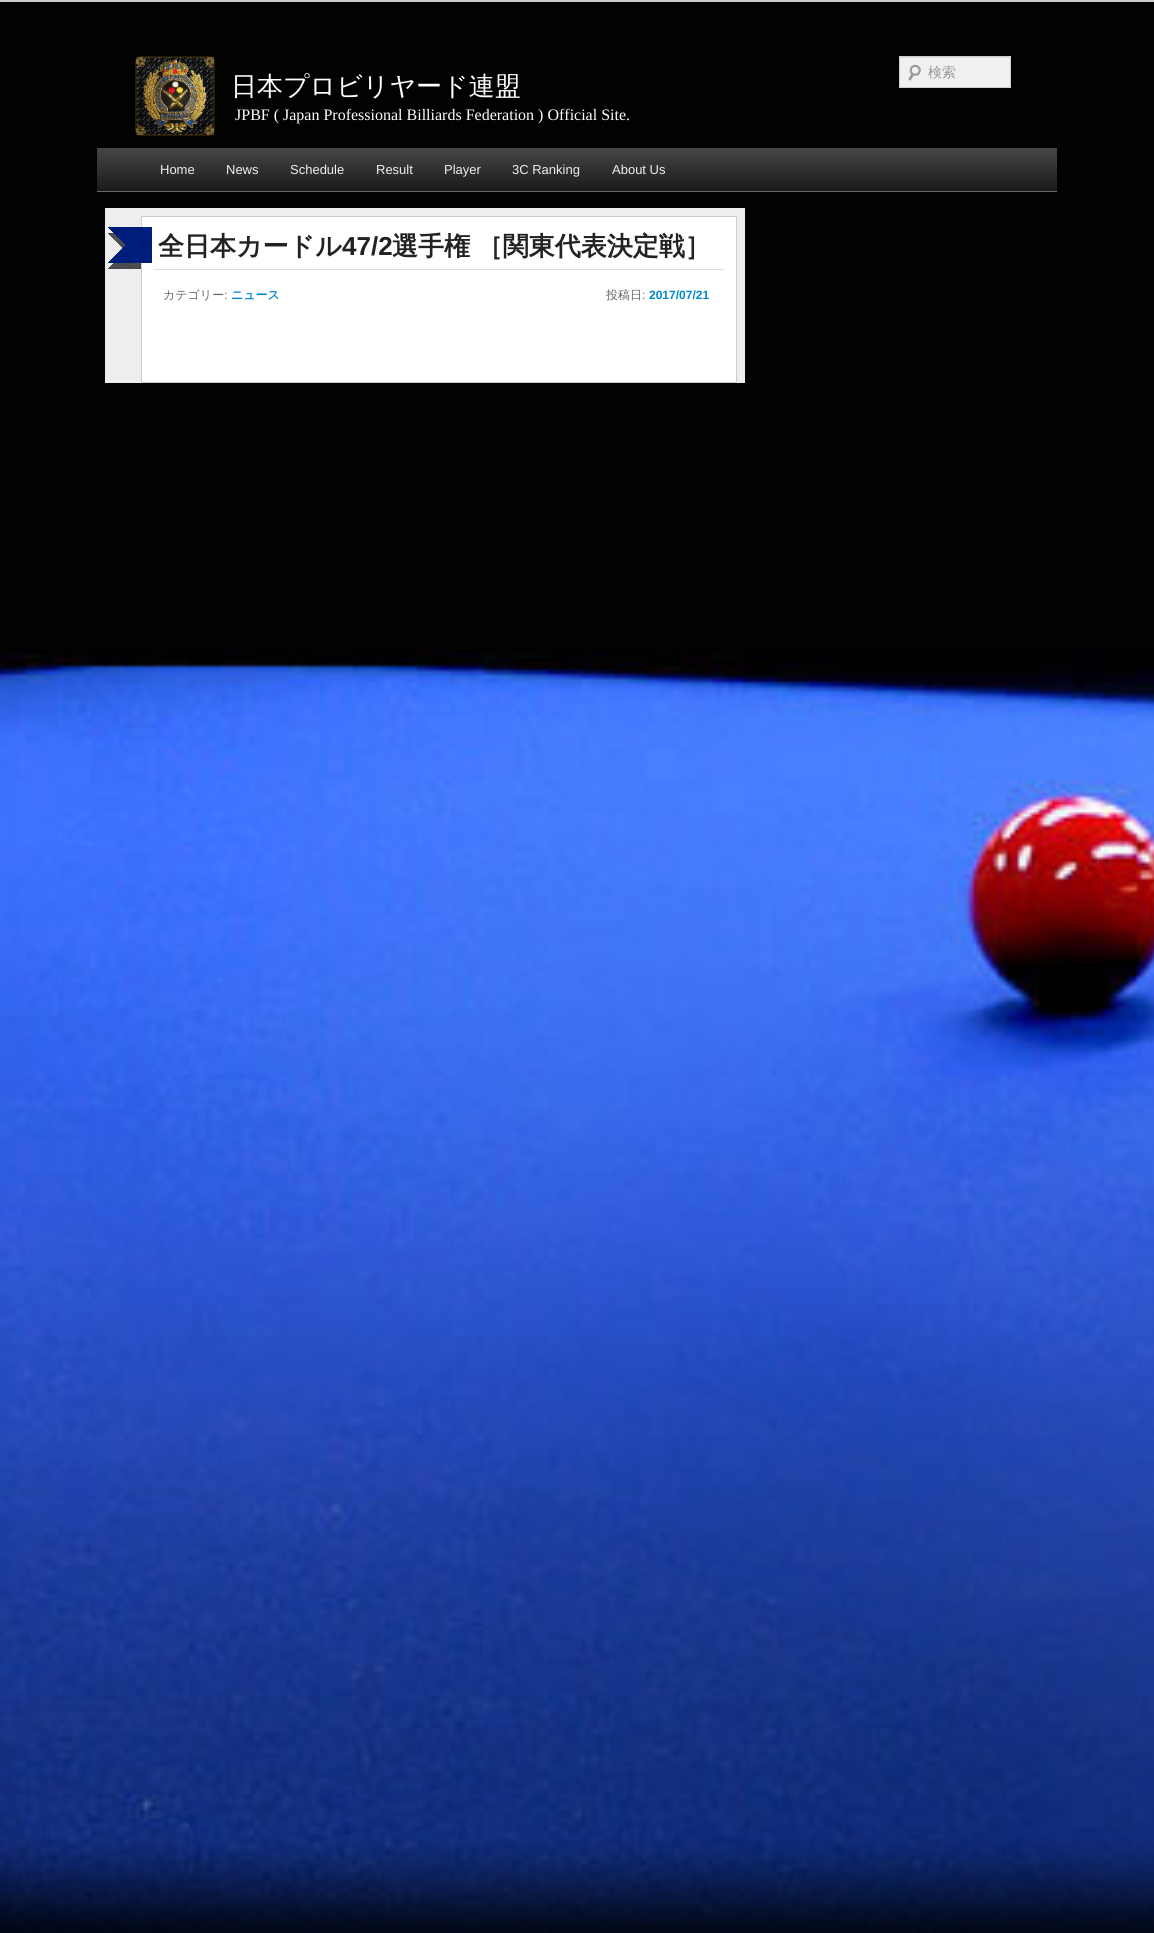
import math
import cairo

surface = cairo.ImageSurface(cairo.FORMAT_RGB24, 1154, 1933)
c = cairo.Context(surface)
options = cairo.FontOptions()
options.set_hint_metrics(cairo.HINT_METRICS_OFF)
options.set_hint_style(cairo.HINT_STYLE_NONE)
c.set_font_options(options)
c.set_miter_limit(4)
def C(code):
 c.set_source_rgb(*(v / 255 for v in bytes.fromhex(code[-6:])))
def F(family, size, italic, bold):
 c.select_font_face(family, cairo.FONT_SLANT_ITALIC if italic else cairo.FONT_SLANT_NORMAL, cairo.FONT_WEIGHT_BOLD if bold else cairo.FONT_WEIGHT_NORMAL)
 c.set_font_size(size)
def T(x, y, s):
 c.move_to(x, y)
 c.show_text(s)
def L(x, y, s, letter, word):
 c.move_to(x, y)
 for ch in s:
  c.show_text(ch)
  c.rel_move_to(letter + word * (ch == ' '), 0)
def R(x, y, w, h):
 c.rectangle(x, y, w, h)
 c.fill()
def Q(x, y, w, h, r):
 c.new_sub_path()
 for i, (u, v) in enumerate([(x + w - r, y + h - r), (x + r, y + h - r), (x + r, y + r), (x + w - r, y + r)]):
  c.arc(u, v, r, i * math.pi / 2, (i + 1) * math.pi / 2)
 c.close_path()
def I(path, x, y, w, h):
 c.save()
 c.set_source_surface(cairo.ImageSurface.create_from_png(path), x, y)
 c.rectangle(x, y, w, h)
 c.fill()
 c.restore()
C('020202')
c.paint()
I('1.png',0,650,1154,1283)
C('cccccc')
R(0,0,1154,2)
I('2.png',135,56,80,80)
F('WenQuanYi Zen Hei Medium',26,0,0)
C('ffffff')
T(231,95,'日本プロビリヤード連盟')
F('Liberation Serif',16,0,0)
T(235,120,'JPBF ( Japan Professional Billiards Federation ) Official Site.')
C('f0f0f0')
R(899,56,112,32)
I('3.png',908,64,13,17)
c.set_source_rgba(0,0,0,0.07)
c.new_path()
c.move_to(901,58)
c.line_to(1010,58)
c.line_to(1010,59)
c.line_to(1009,57)
c.line_to(919,57)
c.curve_to(915,57,900,52,900,59)
c.curve_to(900,58,900,58,901,58)
c.close_path()
c.fill()
Q(899.5,56.5,111,31,1.5)
C('cccccc')
c.set_line_width(1)
c.stroke()
F('WenQuanYi Zen Hei Medium',14,0,0)
C('999999')
T(928,77,'検索')
gradient = cairo.LinearGradient(577,148,577,191)
gradient.add_color_stop_rgba(0,0.271,0.271,0.271,1)
gradient.add_color_stop_rgba(1,0.102,0.102,0.102,1)
c.set_source(gradient)
R(97,148,960,43)
C('666666')
R(97,191,960,1)
F('Liberation Sans',13,0,0)
C('eeeeee')
T(160,174,'Home')
T(226,174,'News')
T(290,174,'Schedule')
T(376,174,'Result')
T(444,174,'Player')
T(512,174,'3C Ranking')
T(612,174,'About Us')
R(105,208,640,175)
C('ffffff')
c.rectangle(141.5,216.5,595,166)
c.fill_preserve()
C('cccccc')
c.stroke()
C('dddddd')
R(154,269,570,1)
I('4.png',108,227,44,42)
F('WenQuanYi Zen Hei',26,0,1)
C('222222')
T(158,255,'全日本カードル')
F('Liberation Sans',26,0,1)
T(342,255,'47/2')
F('WenQuanYi Zen Hei',26,0,1)
L(392,255,'選手権 ［関東代表決定戦］',0,-1)
F('WenQuanYi Zen Hei Medium',12,0,0)
C('666666')
T(163,299,'カテゴリー')
F('Liberation Sans',12,0,0)
T(224,299,':')
F('WenQuanYi Zen Hei',12,0,1)
C('0088cc')
T(231,299,'ニュース')
F('WenQuanYi Zen Hei Medium',12,0,0)
C('666666')
T(606,299,'投稿日')
F('Liberation Sans',12,0,0)
T(642,299,':')
F('Liberation Sans',12,0,1)
C('0088cc')
T(649,299,'2017/07/21')
surface.write_to_png('o.png')
